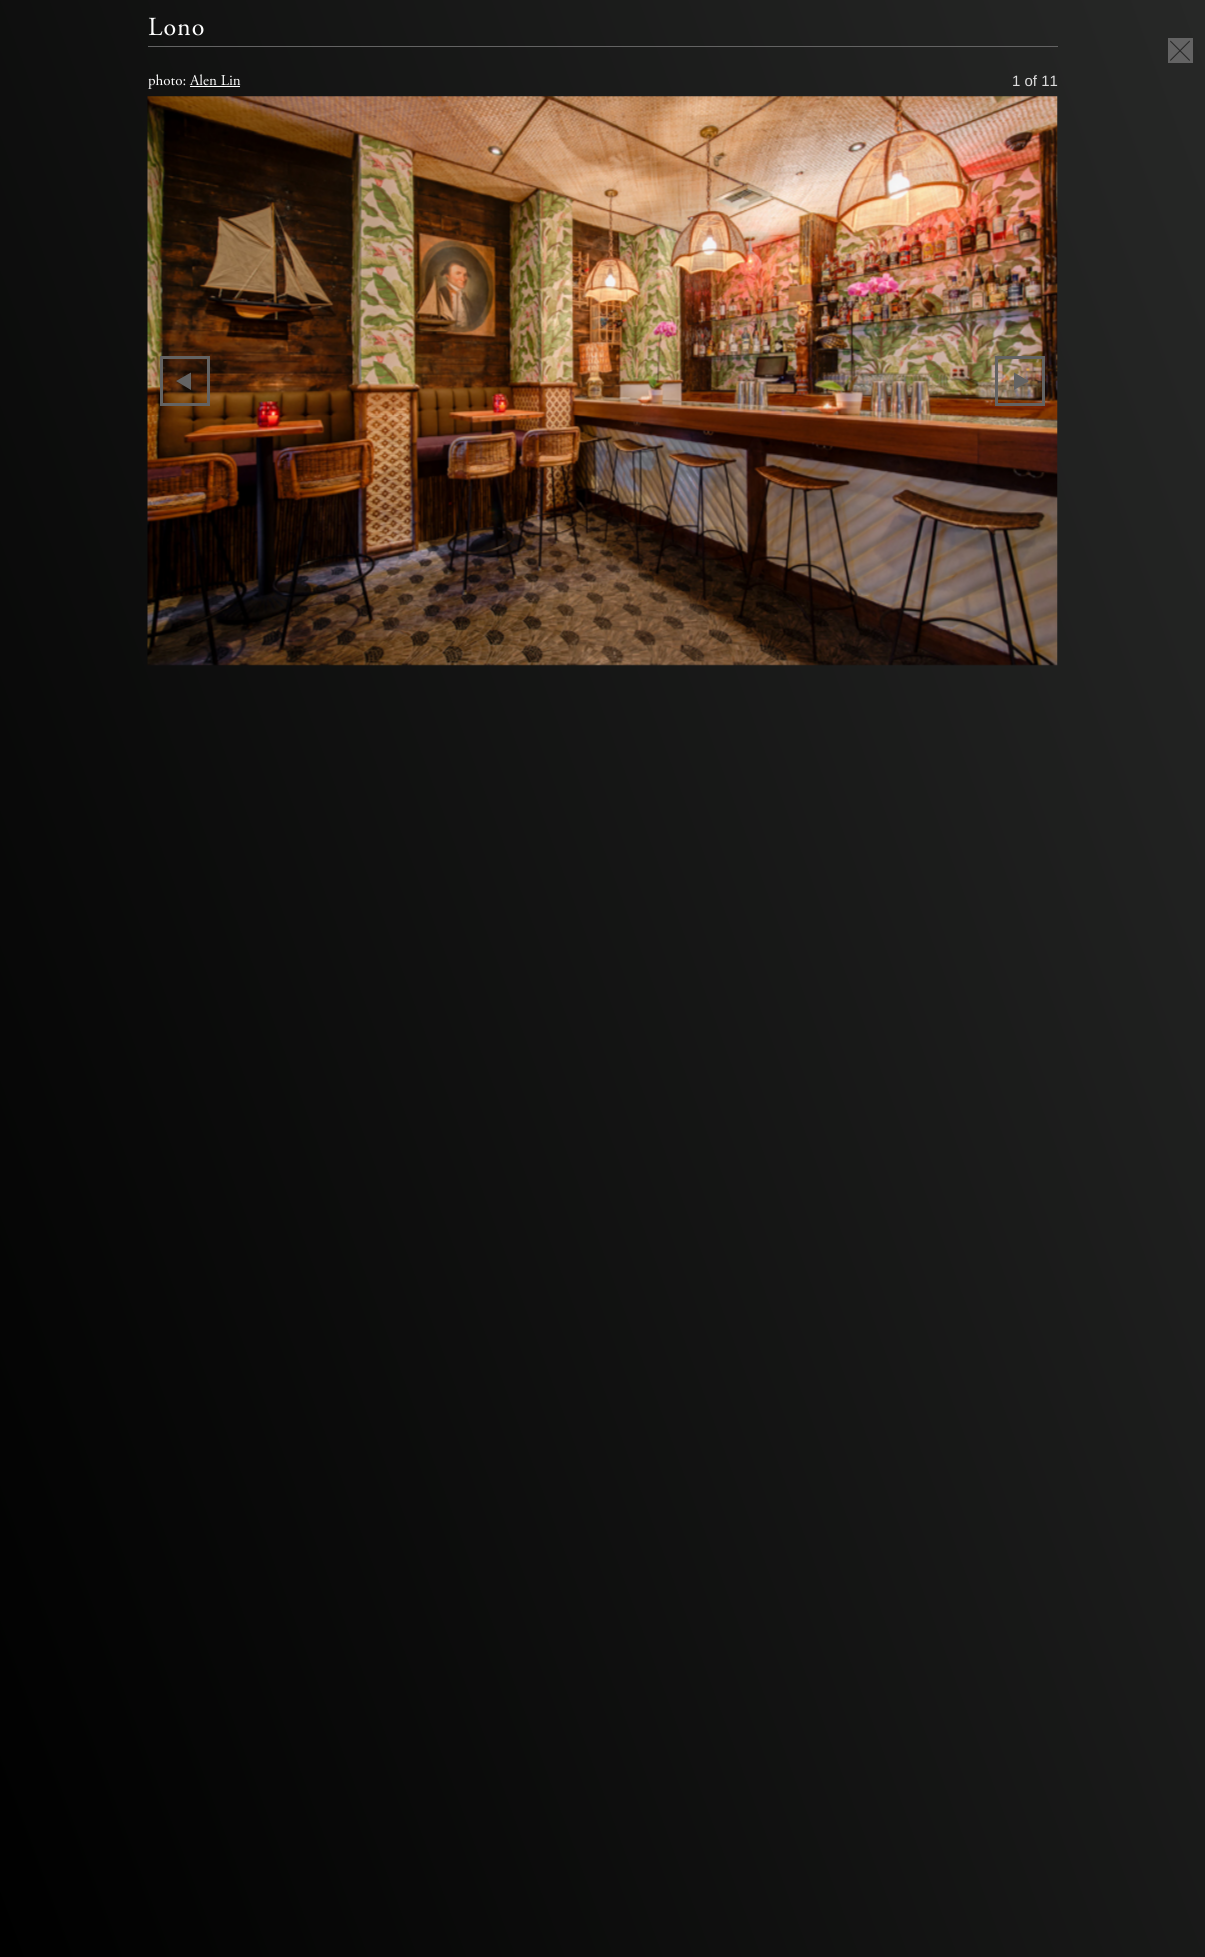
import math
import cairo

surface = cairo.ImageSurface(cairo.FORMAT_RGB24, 1205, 1957)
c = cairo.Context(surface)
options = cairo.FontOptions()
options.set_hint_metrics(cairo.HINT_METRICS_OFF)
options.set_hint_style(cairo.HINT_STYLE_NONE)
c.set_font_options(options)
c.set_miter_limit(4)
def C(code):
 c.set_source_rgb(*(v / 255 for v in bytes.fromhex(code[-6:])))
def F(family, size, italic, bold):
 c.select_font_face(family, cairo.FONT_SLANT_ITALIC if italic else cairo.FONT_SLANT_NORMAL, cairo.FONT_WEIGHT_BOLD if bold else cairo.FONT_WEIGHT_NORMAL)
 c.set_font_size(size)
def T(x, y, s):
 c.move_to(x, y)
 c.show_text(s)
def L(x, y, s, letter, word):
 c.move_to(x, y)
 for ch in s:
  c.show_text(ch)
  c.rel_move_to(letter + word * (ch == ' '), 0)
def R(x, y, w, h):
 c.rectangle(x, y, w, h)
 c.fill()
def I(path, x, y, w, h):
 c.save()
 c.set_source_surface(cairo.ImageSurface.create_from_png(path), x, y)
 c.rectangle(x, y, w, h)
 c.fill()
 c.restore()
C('ffffff')
c.paint()
gradient = cairo.LinearGradient(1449,671,-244,1287)
gradient.add_color_stop_rgba(0,0.153,0.157,0.153,1)
gradient.add_color_stop_rgba(1,0,0,0,1)
c.set_source(gradient)
R(0,0,1205,1957)
C('636363')
R(148,46,910,1)
F('Adobe Garamond',26,0,0)
C('ffffff')
L(148,35,'Lono',1,0)
C('636363')
R(1168,38,25,25)
C('272827')
c.new_path()
c.move_to(1170.5,40.5)
c.line_to(1190,60)
c.line_to(1189.5,61)
c.line_to(1170,41.5)
c.close_path()
c.fill()
c.new_path()
c.move_to(1170,60)
c.line_to(1189.5,40.5)
c.line_to(1190,41.5)
c.line_to(1170.5,61)
c.close_path()
c.fill()
F('Adobe Garamond',15,0,0)
C('ffffff')
T(148,85,'photo: Alen Lin')
R(190,86,50,1)
F('Liberation Sans',15,0,0)
C('dddddd')
T(1012,86,'1 of 11')
I('1.png',147,96,911,570)
c.rectangle(161.5,357.5,47,47)
C('636363')
c.set_line_width(3)
c.stroke()
c.new_path()
c.move_to(191,372.5)
c.line_to(191,390)
c.line_to(176,381)
c.close_path()
c.fill()
c.rectangle(996.5,357.5,47,47)
c.stroke()
c.new_path()
c.move_to(1014,390)
c.line_to(1014,372.5)
c.line_to(1029,381)
c.close_path()
c.fill()
surface.write_to_png('o.png')
